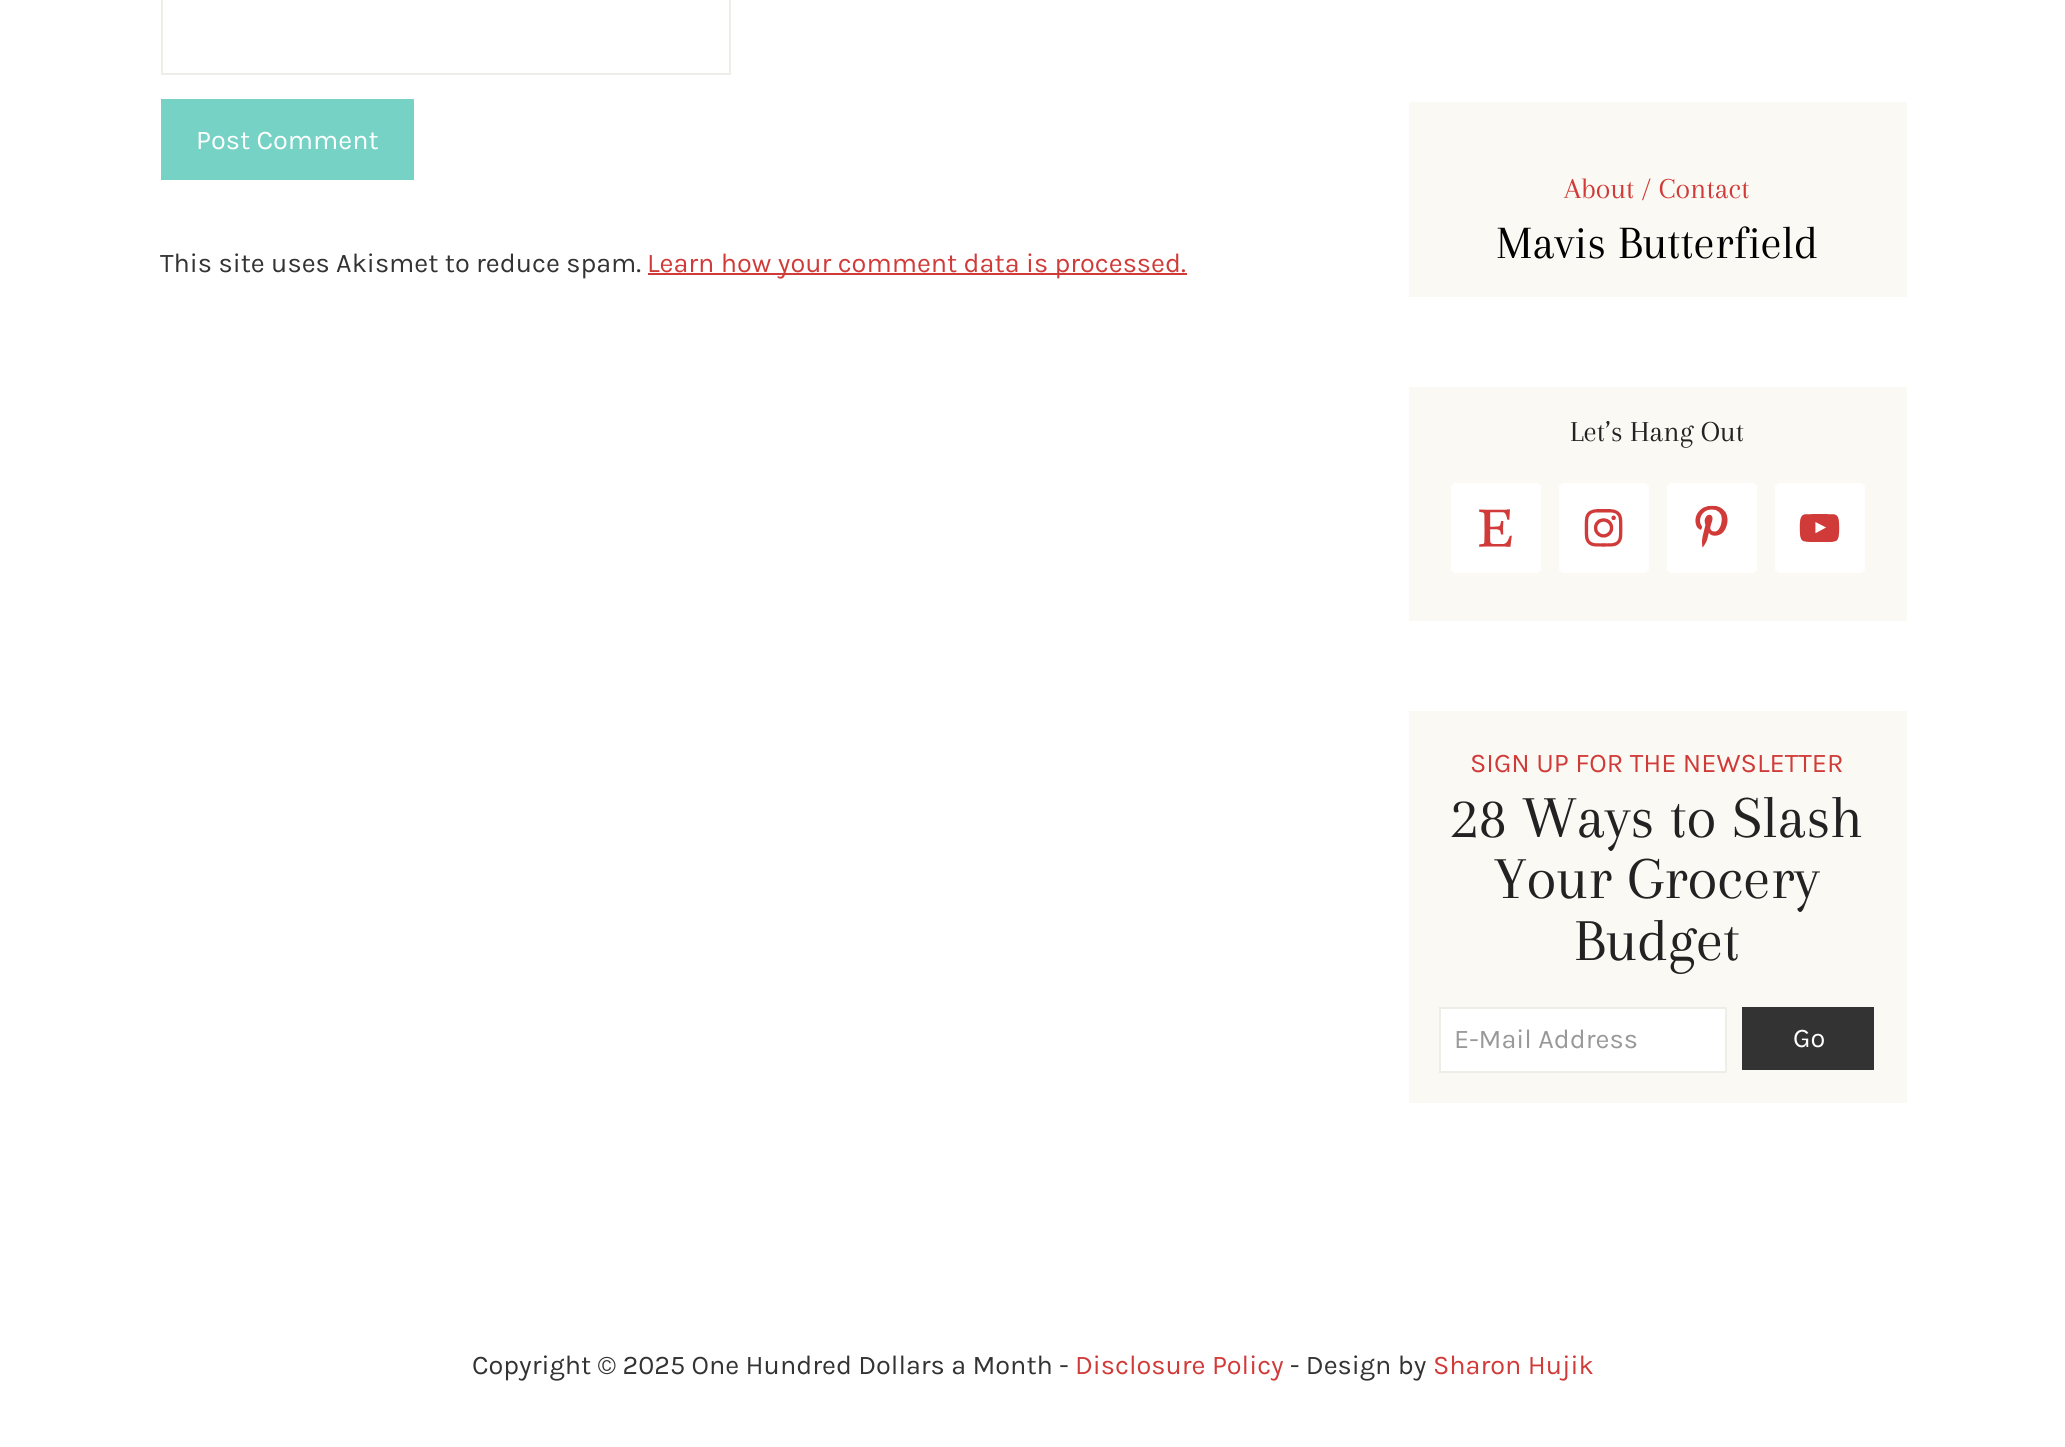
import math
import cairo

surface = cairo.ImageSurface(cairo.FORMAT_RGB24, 2065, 1447)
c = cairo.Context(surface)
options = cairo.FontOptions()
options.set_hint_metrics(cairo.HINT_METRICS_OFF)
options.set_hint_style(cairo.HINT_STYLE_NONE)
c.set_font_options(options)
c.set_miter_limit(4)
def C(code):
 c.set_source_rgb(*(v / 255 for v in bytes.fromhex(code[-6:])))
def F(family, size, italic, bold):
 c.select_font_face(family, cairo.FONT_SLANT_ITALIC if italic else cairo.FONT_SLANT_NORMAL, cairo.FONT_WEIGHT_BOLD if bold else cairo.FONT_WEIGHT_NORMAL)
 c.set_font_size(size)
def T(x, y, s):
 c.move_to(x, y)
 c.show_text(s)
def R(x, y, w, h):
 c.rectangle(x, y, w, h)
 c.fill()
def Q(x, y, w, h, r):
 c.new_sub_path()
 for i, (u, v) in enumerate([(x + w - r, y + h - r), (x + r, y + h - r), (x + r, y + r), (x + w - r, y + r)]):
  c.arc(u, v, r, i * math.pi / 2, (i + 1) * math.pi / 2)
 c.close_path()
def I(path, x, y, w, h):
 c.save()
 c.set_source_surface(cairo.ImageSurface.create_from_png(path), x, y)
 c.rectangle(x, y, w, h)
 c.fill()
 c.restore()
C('ffffff')
c.paint()
c.rectangle(162,-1,568,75)
C('eeeee8')
c.stroke()
C('76d2c5')
R(161,99,253,81)
F('Karla',27,0,0)
C('ffffff')
T(196,149,'Post Comment')
C('333333')
T(160,272,'This site uses Akismet to reduce spam.')
C('d03b39')
R(648,273,539,2)
T(647,272,'Learn how your comment data is processed.')
C('fbf9f4')
R(1409,102,498,195)
F('Arapey',30,0,0)
C('d03b39')
T(1564,198,'About / Contact')
F('Arapey',48,0,0)
C('000000')
T(1496,258,'Mavis Butterfield')
C('fbf9f4')
R(1409,387,498,234)
F('Arapey',30,0,0)
C('222222')
T(1570,441,'Let’s Hang Out')
C('ffffff')
Q(1451,483,90,90,5)
c.fill()
I('1.png',1479,509,33,38)
Q(1559,483,90,90,5)
c.fill()
I('2.png',1584,509,39,38)
Q(1667,483,90,90,5)
c.fill()
I('3.png',1695,505,33,43)
Q(1775,483,90,90,5)
c.fill()
I('4.png',1799,514,41,28)
C('fbf9f4')
R(1409,711,498,392)
F('Karla',27,0,0)
C('d03b39')
T(1470,772,'SIGN UP FOR THE NEWSLETTER')
F('Arapey',61.5,0,0)
C('222222')
T(1450,837,'28 Ways to Slash')
T(1494,898,'Your Grocery')
T(1574,960,'Budget')
C('ffffff')
c.rectangle(1440,1008,286,64)
c.fill_preserve()
C('eeeee8')
c.stroke()
F('Karla',27,0,0)
C('999999')
T(1454,1048,'E-Mail Address')
C('333333')
R(1742,1007,132,63)
C('ffffff')
T(1793,1047,'Go')
C('333333')
T(472,1374,'Copyright © 2025 One Hundred Dollars a Month -')
C('d03b39')
T(1075,1374,'Disclosure Policy')
C('333333')
T(1290,1374,'- Design by')
C('d03b39')
T(1433,1374,'Sharon Hujik')
surface.write_to_png('o.png')
